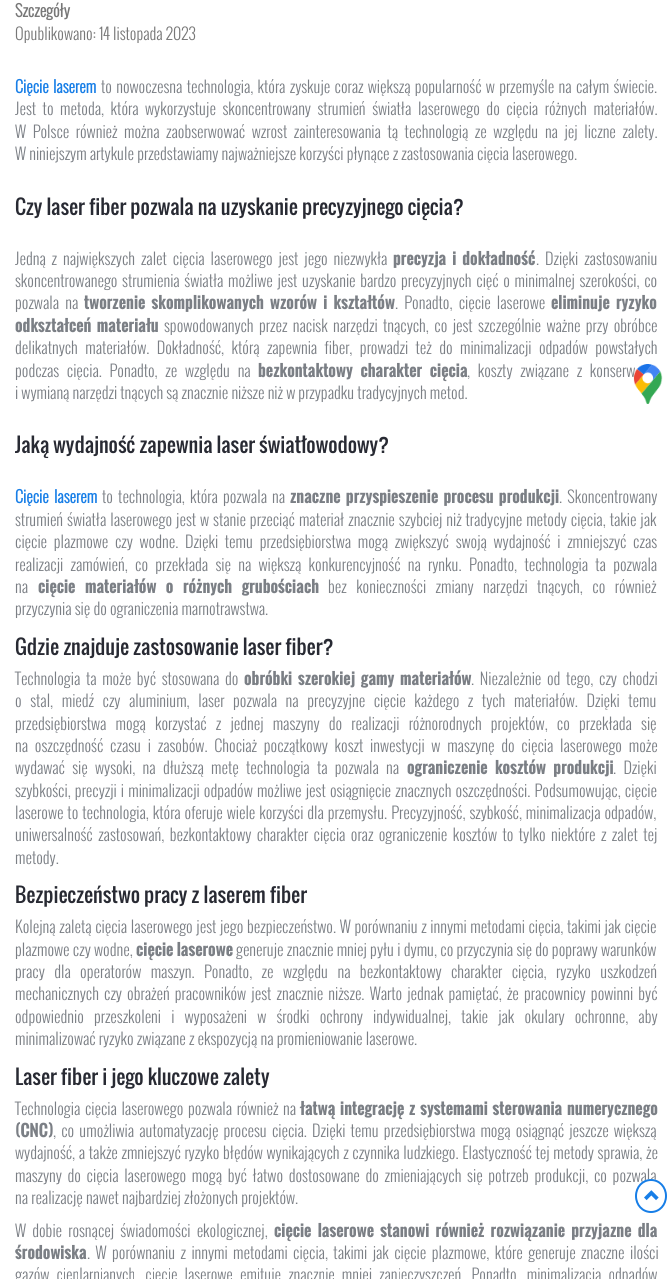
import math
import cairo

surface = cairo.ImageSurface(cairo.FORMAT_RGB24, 672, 1279)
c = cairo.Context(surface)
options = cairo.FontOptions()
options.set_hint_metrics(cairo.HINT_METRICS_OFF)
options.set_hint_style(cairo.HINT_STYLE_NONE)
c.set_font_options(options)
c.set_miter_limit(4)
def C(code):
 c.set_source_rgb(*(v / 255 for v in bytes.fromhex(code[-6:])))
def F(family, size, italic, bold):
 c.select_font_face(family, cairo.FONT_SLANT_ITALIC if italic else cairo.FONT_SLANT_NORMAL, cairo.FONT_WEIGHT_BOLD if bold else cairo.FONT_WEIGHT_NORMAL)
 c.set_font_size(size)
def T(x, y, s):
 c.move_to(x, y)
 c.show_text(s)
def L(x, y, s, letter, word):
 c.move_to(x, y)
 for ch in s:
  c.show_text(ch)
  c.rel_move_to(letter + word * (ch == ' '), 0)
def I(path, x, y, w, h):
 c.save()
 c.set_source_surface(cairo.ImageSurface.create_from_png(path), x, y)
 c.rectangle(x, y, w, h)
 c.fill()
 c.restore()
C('ffffff')
c.paint()
F('Oswald',16,0,1)
C('777777')
T(15,17,'Szczegóły')
F('Oswald Light',16,0,0)
T(15,40,'Opublikowano: 14 listopada 2023')
F('Oswald',16,0,1)
C('177ee7')
L(15,93,'Cięcie laserem',0,1)
F('Oswald Light',16,0,0)
C('7b7f85')
L(101,93,'to nowoczesna technologia, która zyskuje coraz większą popularność w przemyśle na całym świecie.',0,1.1)
L(15,115,'Jest to metoda, która wykorzystuje skoncentrowany strumień światła laserowego do cięcia różnych materiałów.',0,3.4)
L(15,138,'W Polsce również można zaobserwować wzrost zainteresowania tą technologią ze względu na jej liczne zalety.',0,3.4)
T(15,160,'W niniejszym artykule przedstawiamy najważniejsze korzyści płynące z zastosowania cięcia laserowego.')
F('Oswald',20,0,0)
C('282a33')
T(15,215,'Czy laser fiber pozwala na uzyskanie precyzyjnego cięcia?')
F('Oswald Light',16,0,0)
C('7b7f85')
L(15,265,'Jedną z największych zalet cięcia laserowego jest jego niezwykła',0,2.75)
F('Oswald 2',16,0,1)
L(393,265,'precyzja i dokładność',0,2.75)
F('Oswald Light',16,0,0)
L(536,265,'. Dzięki zastosowaniu',0,2.75)
L(15,287,'skoncentrowanego strumienia światła możliwe jest uzyskanie bardzo precyzyjnych cięć o minimalnej szerokości, co',0,1.5)
L(15,309,'pozwala na',0,3)
F('Oswald 2',16,0,1)
L(84,309,'tworzenie skomplikowanych wzorów i kształtów',0,3)
F('Oswald Light',16,0,0)
L(395,309,'. Ponadto, cięcie laserowe',0,3)
F('Oswald 2',16,0,1)
L(551,309,'eliminuje ryzyko',0,3)
L(15,332,'odkształceń materiału',0,2.25)
F('Oswald Light',16,0,0)
L(164,332,'spowodowanych przez nacisk narzędzi tnących, co jest szczególnie ważne przy obróbce',0,2.25)
L(15,354,'delikatnych materiałów. Dokładność, którą zapewnia fiber, prowadzi też do minimalizacji odpadów powstałych',0,4.25)
L(15,377,'podczas cięcia. Ponadto, ze względu na',0,4.5)
F('Oswald 2',16,0,1)
L(258,377,'bezkontaktowy charakter cięcia',0,4.5)
F('Oswald Light',16,0,0)
L(467,377,', koszty związane z konserw',0,4.5)
T(15,399,'i wymianą narzędzi tnących są znacznie niższe niż w przypadku tradycyjnych metod.')
F('Oswald',20,0,0)
C('282a33')
T(15,453,'Jaką wydajność zapewnia laser światłowodowy?')
F('Oswald',16,0,1)
C('177ee7')
L(15,503,'Cięcie laserem',0,2)
F('Oswald Light',16,0,0)
C('7b7f85')
L(102,503,'to technologia, która pozwala na',0,2)
F('Oswald 2',16,0,1)
L(290,503,'znaczne przyspieszenie procesu produkcji',0,2)
F('Oswald Light',16,0,0)
L(559,503,'. Skoncentrowany',0,2)
L(15,526,'strumień światła laserowego jest w stanie przeciąć materiał znacznie szybciej niż tradycyjne metody cięcia, takie jak',0,.8)
L(15,548,'cięcie plazmowe czy wodne. Dzięki temu przedsiębiorstwa mogą zwiększyć swoją wydajność i zmniejszyć czas',0,3.5)
L(15,571,'realizacji zamówień, co przekłada się na większą konkurencyjność na rynku. Ponadto, technologia ta pozwala',0,4.1)
T(15,593,'na')
F('Oswald 2',16,0,1)
L(38,593,'cięcie materiałów o różnych grubościach',0,6.25)
F('Oswald Light',16,0,0)
L(328,593,'bez konieczności zmiany narzędzi tnących, co również',0,6.25)
T(15,615,'przyczynia się do ograniczenia marnotrawstwa.')
F('Oswald',20,0,0)
C('282a33')
T(15,655,'Gdzie znajduje zastosowanie laser fiber?')
F('Oswald Light',16,0,0)
C('7b7f85')
L(15,685,'Technologia ta może być stosowana do',0,2.5)
F('Oswald 2',16,0,1)
L(244,685,'obróbki szerokiej gamy materiałów',0,2.5)
F('Oswald Light',16,0,0)
L(471,685,'. Niezależnie od tego, czy chodzi',0,2.5)
L(15,707,'o stal, miedź czy aluminium, laser pozwala na precyzyjne cięcie każdego z tych materiałów. Dzięki temu',0,5.4)
L(15,730,'przedsiębiorstwa mogą korzystać z jednej maszyny do realizacji różnorodnych projektów, co przekłada się',0,6)
L(15,752,'na oszczędność czasu i zasobów. Chociaż początkowy koszt inwestycji w maszynę do cięcia laserowego może',0,3.6)
L(15,774,'wydawać się wysoki, na dłuższą metę technologia ta pozwala na',0,4.1)
F('Oswald 2',16,0,1)
L(407,774,'ograniczenie kosztów produkcji',0,4.1)
F('Oswald Light',16,0,0)
L(613,774,'. Dzięki',0,4.1)
L(15,797,'szybkości, precyzji i minimalizacji odpadów możliwe jest osiągnięcie znacznych oszczędności. Podsumowując, cięcie',0,1)
L(15,819,'laserowe to technologia, która oferuje wiele korzyści dla przemysłu. Precyzyjność, szybkość, minimalizacja odpadów,',0,.75)
L(15,841,'uniwersalność zastosowań, bezkontaktowy charakter cięcia oraz ograniczenie kosztów to tylko niektóre z zalet tej',0,2.25)
T(15,864,'metody.')
F('Oswald',20,0,0)
C('282a33')
T(15,903,'Bezpieczeństwo pracy z laserem fiber')
F('Oswald Light',16,0,0)
C('7b7f85')
L(15,933,'Kolejną zaletą cięcia laserowego jest jego bezpieczeństwo. W porównaniu z innymi metodami cięcia, takimi jak cięcie',0,.5)
L(15,956,'plazmowe czy wodne,',0,.1)
F('Oswald 2',16,0,1)
T(136,956,'cięcie laserowe')
F('Oswald Light',16,0,0)
L(236,956,'generuje znacznie mniej pyłu i dymu, co przyczynia się do poprawy warunków',0,.1)
L(15,978,'pracy dla operatorów maszyn. Ponadto, ze względu na bezkontaktowy charakter cięcia, ryzyko uszkodzeń',0,6.25)
L(15,1000,'mechanicznych czy obrażeń pracowników jest znacznie niższe. Warto jednak pamiętać, że pracownicy powinni być',0,2)
L(15,1023,'odpowiednio przeszkoleni i wyposażeni w środki ochrony indywidualnej, takie jak okulary ochronne, aby',0,7)
T(15,1045,'minimalizować ryzyko związane z ekspozycją na promieniowanie laserowe.')
F('Oswald',20,0,0)
C('282a33')
T(15,1085,'Laser fiber i jego kluczowe zalety')
F('Oswald Light',16,0,0)
C('7b7f85')
L(15,1115,'Technologia cięcia laserowego pozwala również na',0,1.5)
F('Oswald 2',16,0,1)
L(300,1115,'łatwą integrację z systemami sterowania numerycznego',0,1.5)
T(15,1137,'(CNC)')
F('Oswald Light',16,0,0)
L(53,1137,', co umożliwia automatyzację procesu cięcia. Dzięki temu przedsiębiorstwa mogą osiągnąć jeszcze większą',0,2)
L(15,1159,'wydajność, a także zmniejszyć ryzyko błędów wynikających z czynnika ludzkiego. Elastyczność tej metody sprawia, że',0,.5)
L(15,1182,'maszyny do cięcia laserowego mogą być łatwo dostosowane do zmieniających się potrzeb produkcji, co pozwala',0,2.5)
T(15,1204,'na realizację nawet najbardziej złożonych projektów.')
L(15,1237,'W dobie rosnącej świadomości ekologicznej,',0,3)
F('Oswald 2',16,0,1)
L(274,1237,'cięcie laserowe stanowi również rozwiązanie przyjazne dla',0,3)
T(15,1259,'środowiska')
F('Oswald Light',16,0,0)
L(87,1259,'. W porównaniu z innymi metodami cięcia, takimi jak cięcie plazmowe, które generuje znaczne ilości',0,2.25)
L(15,1281,'gazów cieplarnianych, cięcie laserowe emituje znacznie mniej zanieczyszczeń. Ponadto, minimalizacja odpadów',0,3.9)
I('1.png',633,364,30,40)
C('ffffff')
c.new_path()
c.move_to(651,1179)
c.curve_to(660,1179,667,1186.5,667,1196)
c.curve_to(667,1205.5,660,1213,651,1213)
c.curve_to(642,1213,635,1205.5,635,1196)
c.curve_to(635,1186.5,642,1179,651,1179)
c.close_path()
c.fill()
c.new_path()
c.move_to(651,1180)
c.curve_to(659.5,1180,666,1187,666,1196)
c.curve_to(666,1205,659.5,1212,651,1212)
c.curve_to(642.5,1212,636,1205,636,1196)
c.curve_to(636,1187,642.5,1180,651,1180)
c.close_path()
C('177ee7')
c.stroke()
I('2.png',644,1190,15,11)
surface.write_to_png('o.png')
